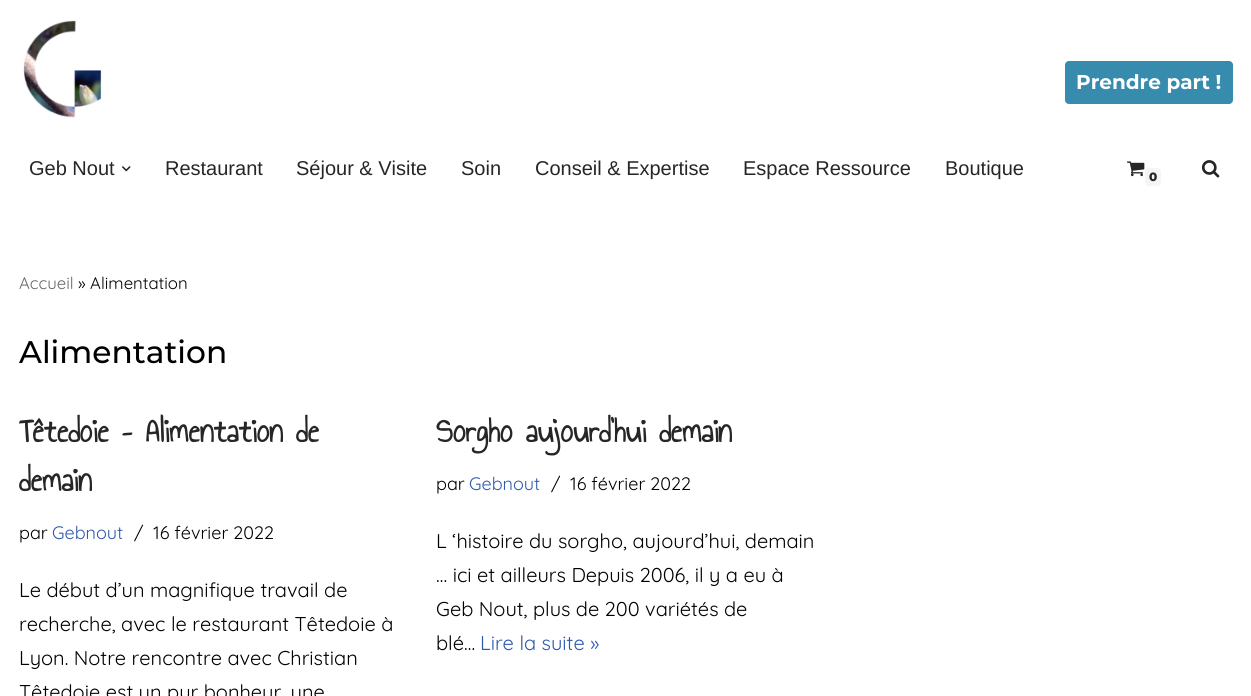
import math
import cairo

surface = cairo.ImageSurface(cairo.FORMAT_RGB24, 1251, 696)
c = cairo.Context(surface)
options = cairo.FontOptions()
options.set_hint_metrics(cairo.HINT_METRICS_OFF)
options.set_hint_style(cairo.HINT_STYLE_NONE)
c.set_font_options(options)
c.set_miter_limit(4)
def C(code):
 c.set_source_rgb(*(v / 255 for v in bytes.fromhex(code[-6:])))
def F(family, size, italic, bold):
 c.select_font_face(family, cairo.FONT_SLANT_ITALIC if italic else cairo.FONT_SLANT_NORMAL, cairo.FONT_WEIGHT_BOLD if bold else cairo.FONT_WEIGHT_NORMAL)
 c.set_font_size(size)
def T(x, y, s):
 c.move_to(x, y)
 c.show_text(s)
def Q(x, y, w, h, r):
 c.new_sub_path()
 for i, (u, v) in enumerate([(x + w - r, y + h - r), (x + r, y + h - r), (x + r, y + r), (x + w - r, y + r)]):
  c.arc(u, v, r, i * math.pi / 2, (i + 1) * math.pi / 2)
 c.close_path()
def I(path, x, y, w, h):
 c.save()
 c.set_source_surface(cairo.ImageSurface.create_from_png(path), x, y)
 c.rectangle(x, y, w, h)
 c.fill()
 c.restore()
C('ffffff')
c.paint()
I('1.png',23,20,79,98)
C('378cad')
Q(1065,61,168,43,4)
c.fill()
F('Montserrat',20,0,1)
C('ffffff')
T(1076,89,'Prendre part !')
F('Liberation Sans',20,0,0)
C('272626')
T(29,175,'Geb Nout')
I('2.png',122,166,9,6)
T(165,175,'Restaurant')
T(296,175,'Séjour & Visite')
T(461,175,'Soin')
T(535,175,'Conseil & Expertise')
T(743,175,'Espace Ressource')
T(945,175,'Boutique')
I('3.png',1127,161,18,16)
C('f4f5f7')
Q(1145,168,16,18,4)
c.fill()
F('Montserrat ExtraBold',12,0,0)
C('272626')
T(1149,181,'0')
I('4.png',1201,160,19,18)
F('Quicksand',16.75,0,0)
C('676767')
T(19,289,'Accueil')
C('000000')
T(78,289,'» Alimentation')
F('Montserrat Medium',31.25,0,0)
T(19,363,'Alimentation')
F('Annie Use Your Telescope',35,0,1)
C('272626')
T(19,442,'Têtedoie – Alimentation de')
T(19,491,'demain')
F('Quicksand',18,0,0)
C('000000')
T(19,539,'par')
C('2f5aae')
T(52,539,'Gebnout')
C('000000')
T(134,539,'/')
T(153,539,'16 février 2022')
F('Quicksand',20,0,0)
T(19,597,'Le début d’un magnifique travail de')
T(19,631,'recherche, avec le restaurant Têtedoie à')
T(19,665,'Lyon. Notre rencontre avec Christian')
T(19,699,'Têtedoie est un pur bonheur, une')
F('Annie Use Your Telescope',35,0,1)
C('272626')
T(436,442,'Sorgho aujourd’hui demain')
F('Quicksand',18,0,0)
C('000000')
T(436,490,'par')
C('2f5aae')
T(469,490,'Gebnout')
C('000000')
T(551,490,'/')
T(570,490,'16 février 2022')
F('Quicksand',20,0,0)
T(436,548,'L ‘histoire du sorgho, aujourd’hui, demain')
T(436,582,'… ici et ailleurs Depuis 2006, il y a eu à')
T(436,616,'Geb Nout, plus de 200 variétés de')
T(436,650,'blé…')
C('2f5aae')
T(480,650,'Lire la suite »')
surface.write_to_png('o.png')
